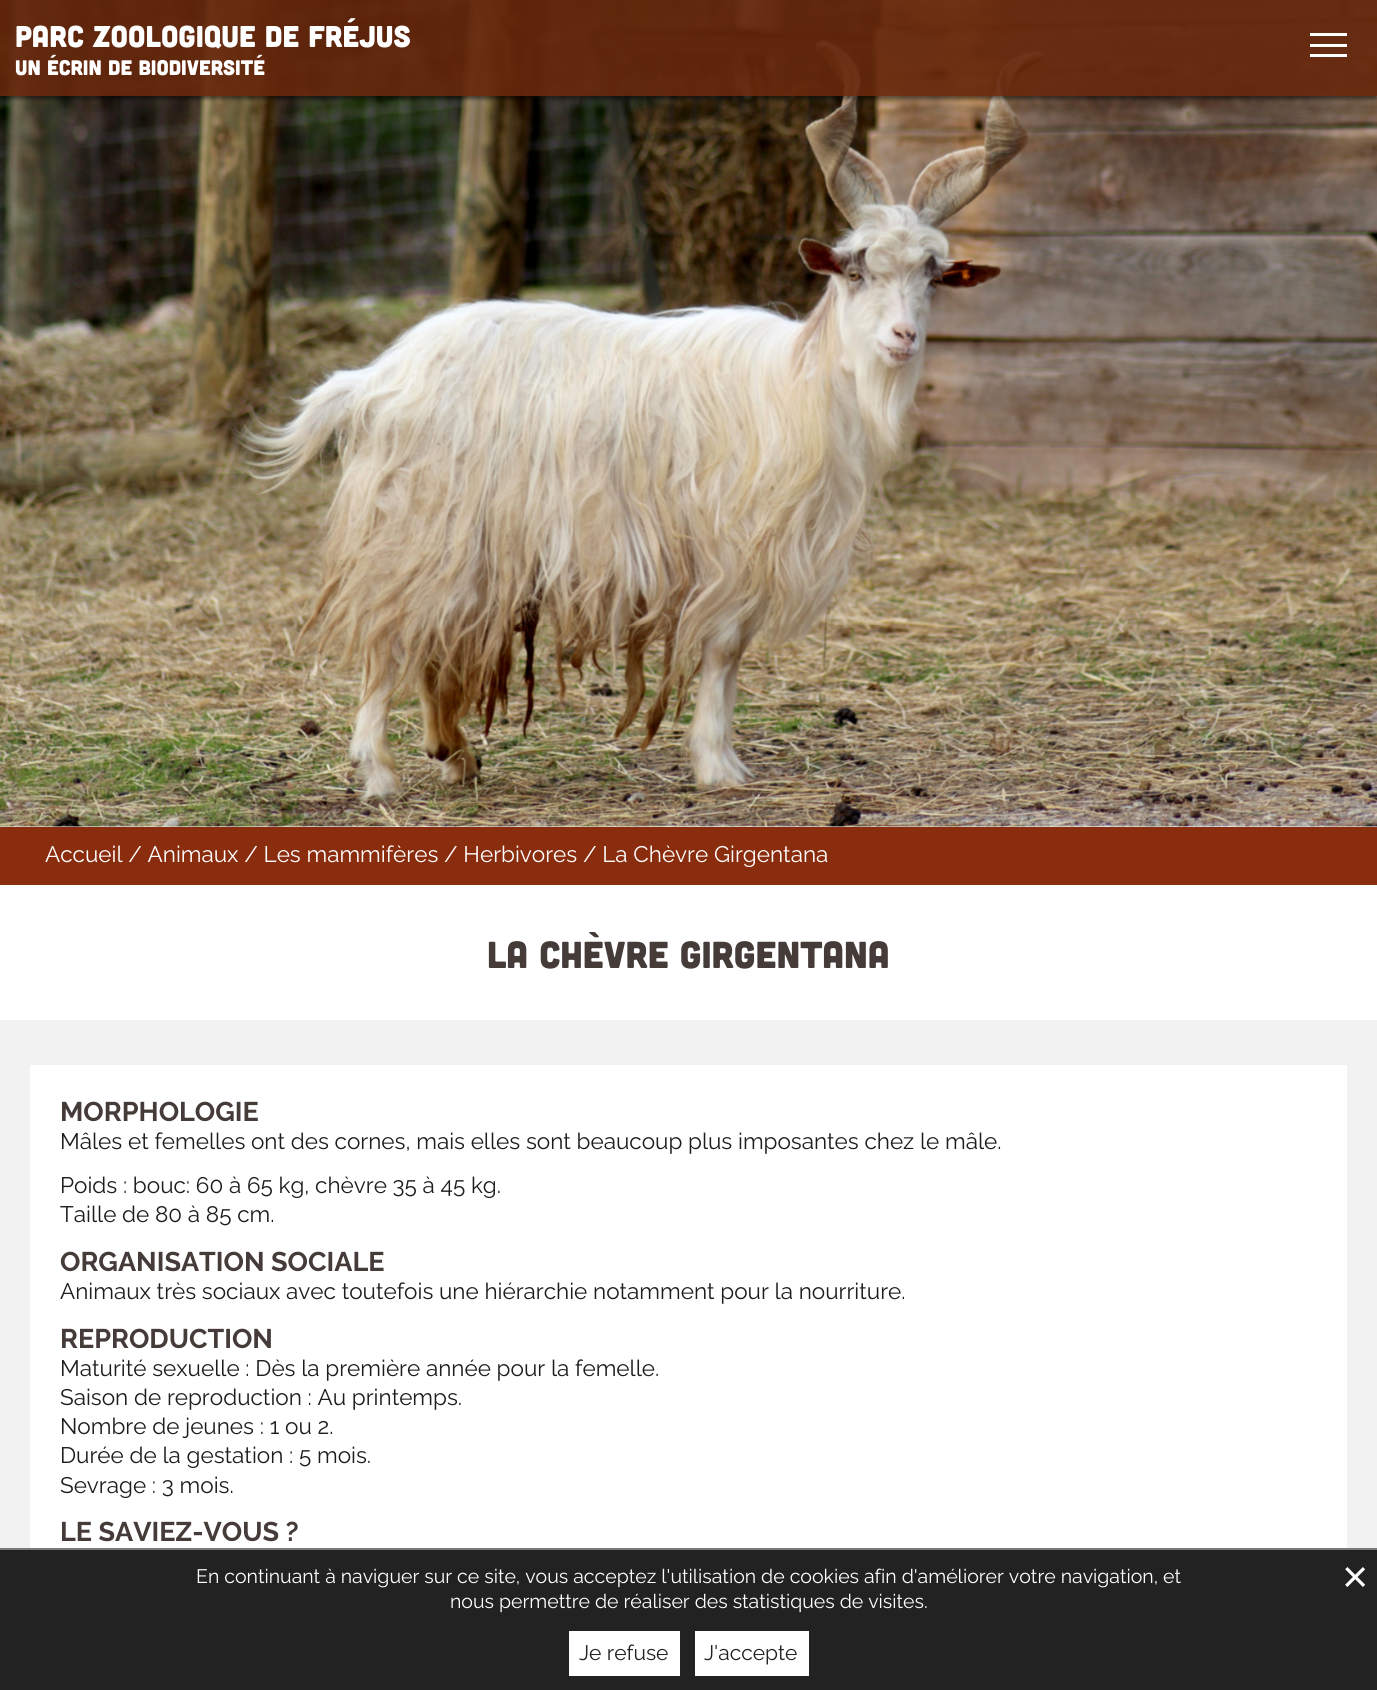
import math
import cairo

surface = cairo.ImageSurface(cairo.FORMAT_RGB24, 1377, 1690)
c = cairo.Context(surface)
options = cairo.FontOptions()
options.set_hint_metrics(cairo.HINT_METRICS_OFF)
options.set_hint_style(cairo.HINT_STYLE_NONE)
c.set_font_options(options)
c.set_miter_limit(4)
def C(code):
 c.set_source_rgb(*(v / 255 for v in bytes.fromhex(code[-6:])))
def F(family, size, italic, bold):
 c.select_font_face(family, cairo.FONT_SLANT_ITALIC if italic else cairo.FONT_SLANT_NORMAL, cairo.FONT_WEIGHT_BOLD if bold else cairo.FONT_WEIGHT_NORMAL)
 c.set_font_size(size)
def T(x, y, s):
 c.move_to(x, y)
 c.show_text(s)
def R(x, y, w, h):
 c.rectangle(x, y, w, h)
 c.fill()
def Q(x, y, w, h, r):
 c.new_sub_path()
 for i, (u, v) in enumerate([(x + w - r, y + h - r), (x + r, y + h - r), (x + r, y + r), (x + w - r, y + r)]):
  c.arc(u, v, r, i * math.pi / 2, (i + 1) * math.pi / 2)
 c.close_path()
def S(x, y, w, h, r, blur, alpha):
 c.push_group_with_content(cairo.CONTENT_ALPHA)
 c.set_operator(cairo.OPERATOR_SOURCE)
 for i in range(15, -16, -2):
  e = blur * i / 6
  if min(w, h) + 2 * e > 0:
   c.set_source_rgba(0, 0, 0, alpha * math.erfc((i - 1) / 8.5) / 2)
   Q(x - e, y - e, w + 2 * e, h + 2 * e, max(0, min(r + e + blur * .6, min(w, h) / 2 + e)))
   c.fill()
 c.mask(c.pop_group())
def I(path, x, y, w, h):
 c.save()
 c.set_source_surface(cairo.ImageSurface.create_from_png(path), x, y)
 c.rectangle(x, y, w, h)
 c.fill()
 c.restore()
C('ffffff')
c.paint()
I('1.png',0,0,1377,827)
c.save()
c.rectangle(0,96,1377,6)
c.clip()
C('000000')
S(0,3,1377,96,0,2,.5)
c.restore()
c.set_source_rgba(0.4,0.153,0.047,0.9)
R(0,0,1377,96)
F('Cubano',30,0,0)
C('ffffff')
T(15,47,'parc zoologique de fréjus')
F('Cubano',21,0,0)
T(15,75,'Un écrin de biodiversité')
R(1310,33,37,3)
R(1310,44,37,3)
R(1310,54,37,3)
C('8a2d0e')
R(0,827,1377,58)
F('Raleway',22.5,0,0)
C('ffffff')
T(45,862,'Accueil / Animaux / Les mammifères / Herbivores / La Chèvre Girgentana')
F('Cubano',37.5,0,0)
C('453b39')
T(487,968,'LA CHÈVRE GIRGENTANA')
C('f2f2f2')
R(0,1020,1377,528)
C('ffffff')
R(30,1065,1317,483)
F('Raleway',27,0,1)
C('453b39')
T(60,1121,'MORPHOLOGIE')
F('Raleway',22.5,0,0)
C('1d1d1b')
T(60,1149,'Mâles et femelles ont des cornes, mais elles sont beaucoup plus imposantes chez le mâle.')
T(60,1193,'Poids : bouc: 60 à 65 kg, chèvre 35 à 45 kg.')
T(60,1222,'Taille de 80 à 85 cm.')
F('Raleway',27,0,1)
C('453b39')
T(60,1271,'ORGANISATION SOCIALE')
F('Raleway',22.5,0,0)
C('1d1d1b')
T(60,1299,'Animaux très sociaux avec toutefois une hiérarchie notamment pour la nourriture.')
F('Raleway',27,0,1)
C('453b39')
T(60,1348,'REPRODUCTION')
F('Raleway',22.5,0,0)
C('1d1d1b')
T(60,1376,'Maturité sexuelle : Dès la première année pour la femelle.')
T(60,1405,'Saison de reproduction : Au printemps.')
T(60,1434,'Nombre de jeunes : 1 ou 2.')
T(60,1463,'Durée de la gestation : 5 mois.')
T(60,1493,'Sevrage : 3 mois.')
F('Raleway',27,0,1)
C('453b39')
T(60,1541,'LE SAVIEZ-VOUS ?')
C('222222')
R(0,1550,1377,140)
C('7a7a7a')
R(0,1548,1377,2)
F('Raleway',19.5,0,0)
C('ffffff')
T(196,1583,'En continuant à naviguer sur ce site, vous acceptez l\'utilisation de cookies afin d\'améliorer votre navigation, et')
T(450,1608,'nous permettre de réaliser des statistiques de visites.')
R(569,1631,111,45)
F('Raleway',21,0,0)
C('222222')
T(579,1660,'Je refuse')
C('ffffff')
R(695,1631,114,45)
C('222222')
T(704,1660,'J\'accepte')
F('Liberation Sans',45,0,0)
C('ffffff')
T(1342,1592,'×')
surface.write_to_png('o.png')
